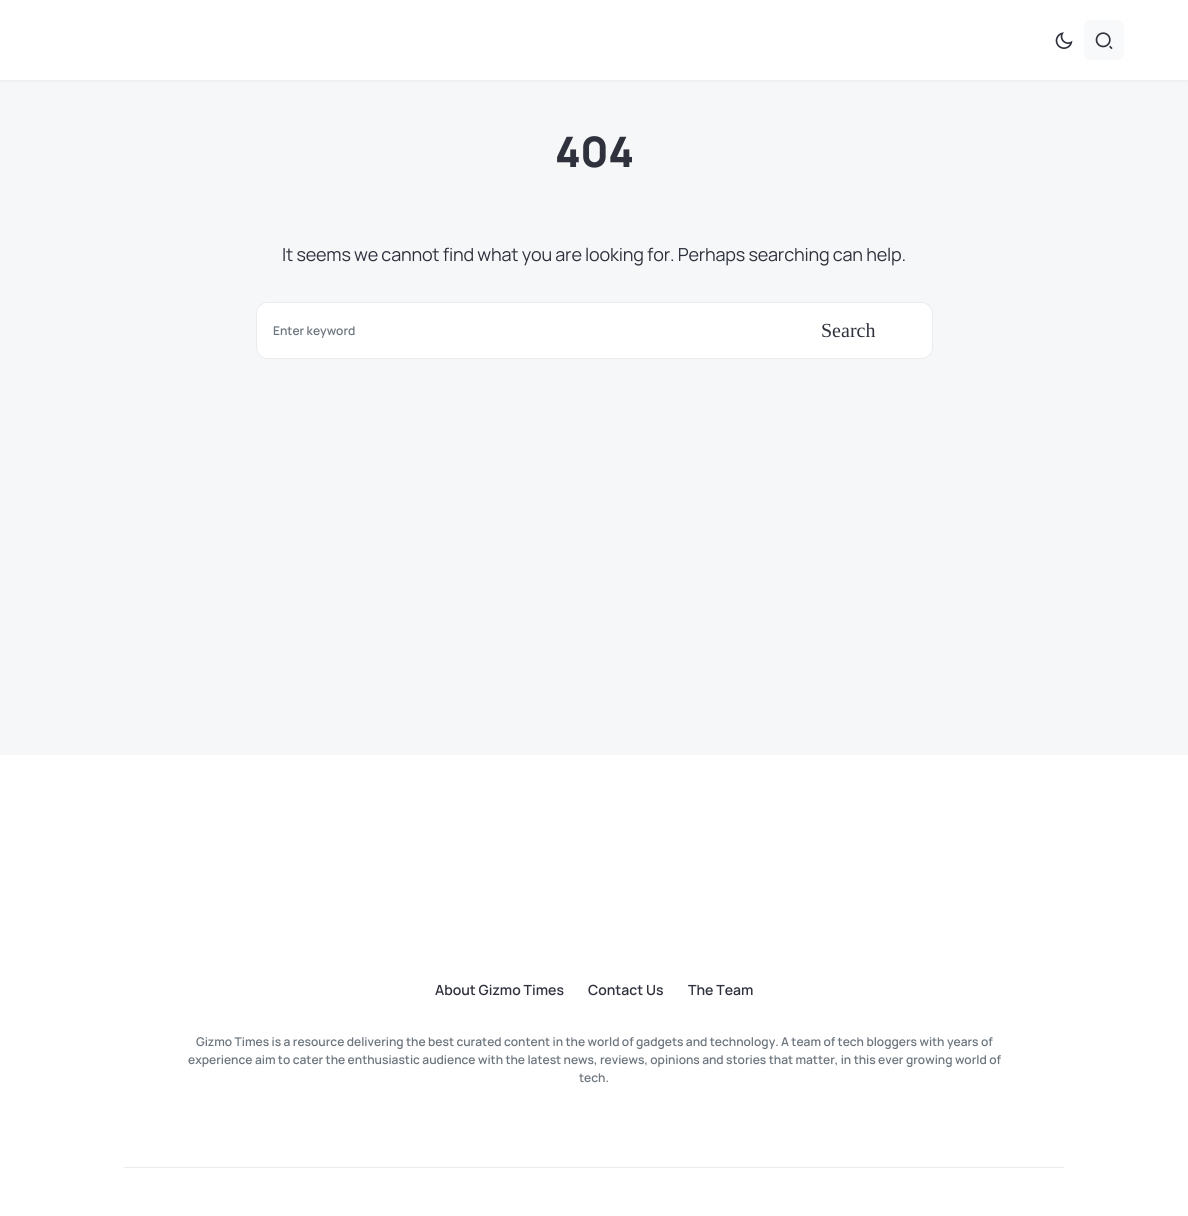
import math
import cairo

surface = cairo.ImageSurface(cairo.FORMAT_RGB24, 1188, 1216)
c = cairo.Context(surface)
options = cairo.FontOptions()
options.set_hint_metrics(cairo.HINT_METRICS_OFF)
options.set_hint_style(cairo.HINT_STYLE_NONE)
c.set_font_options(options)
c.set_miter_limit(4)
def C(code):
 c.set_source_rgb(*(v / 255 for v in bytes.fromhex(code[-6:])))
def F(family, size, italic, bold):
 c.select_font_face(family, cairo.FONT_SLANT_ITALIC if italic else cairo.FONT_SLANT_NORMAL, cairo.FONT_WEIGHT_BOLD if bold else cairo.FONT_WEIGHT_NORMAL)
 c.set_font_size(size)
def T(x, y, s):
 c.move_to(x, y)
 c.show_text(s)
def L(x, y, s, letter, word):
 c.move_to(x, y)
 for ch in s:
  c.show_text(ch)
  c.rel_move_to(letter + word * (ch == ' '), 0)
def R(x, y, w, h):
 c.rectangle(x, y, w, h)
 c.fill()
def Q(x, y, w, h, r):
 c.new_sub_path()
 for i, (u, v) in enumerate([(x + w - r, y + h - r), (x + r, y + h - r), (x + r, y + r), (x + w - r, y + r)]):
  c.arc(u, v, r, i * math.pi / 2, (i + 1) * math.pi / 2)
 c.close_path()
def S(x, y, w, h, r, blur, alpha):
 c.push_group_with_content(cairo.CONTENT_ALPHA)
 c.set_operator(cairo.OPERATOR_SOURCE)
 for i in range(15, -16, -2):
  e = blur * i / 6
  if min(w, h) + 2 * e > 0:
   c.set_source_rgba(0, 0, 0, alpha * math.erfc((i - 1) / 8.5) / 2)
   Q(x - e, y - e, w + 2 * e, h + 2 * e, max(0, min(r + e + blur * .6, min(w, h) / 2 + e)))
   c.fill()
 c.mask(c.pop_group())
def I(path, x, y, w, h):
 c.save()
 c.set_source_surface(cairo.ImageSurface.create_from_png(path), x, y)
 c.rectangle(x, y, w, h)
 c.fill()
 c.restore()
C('f5f7f8')
c.paint()
C('000000')
S(0,1,1188,80,0,1.5,.05)
C('ffffff')
R(0,0,1188,80)
I('1.png',1055,32,18,17)
C('f8f9fa')
Q(1084,20,40,40,6)
c.fill()
I('2.png',1095,32,18,18)
F('Manrope ExtraBold',42,0,0)
C('2f323d')
L(555,167,'404',-.5,0)
F('Manrope',18,0,0)
L(282,261,'It seems we cannot find what you are looking for. Perhaps searching can help.',-.2,0)
C('ffffff')
Q(256.5,302.5,676,56,11.5)
c.fill_preserve()
C('e9ecef')
c.set_line_width(1)
c.stroke()
C('ffffff')
c.new_path()
c.move_to(268,303)
c.line_to(789,303)
c.line_to(789,358)
c.line_to(268,358)
c.curve_to(262,358,257,353,257,347)
c.line_to(257,314)
c.curve_to(257,308,262,303,268,303)
c.close_path()
c.fill()
F('Manrope SemiBold',12,0,0)
C('6c757d')
T(273,335,'Enter keyword')
F('Liberation Serif',20,0,0)
C('2f323d')
T(821,337,'Search')
C('ffffff')
R(0,755,1188,461)
F('Manrope SemiBold',14,0,0)
C('2f323d')
T(435,995,'About Gizmo Times')
T(588,995,'Contact Us')
T(688,995,'The Team')
F('Manrope SemiBold',12,0,0)
C('6c757d')
T(196,1046,'Gizmo Times is a resource delivering the best curated content in the world of gadgets and technology. A team of tech bloggers with years of')
T(188,1064,'experience aim to cater the enthusiastic audience with the latest news, reviews, opinions and stories that matter, in this ever growing world of')
T(579,1082,'tech.')
C('e9ecef')
R(124,1167,940,1)
surface.write_to_png('o.png')
